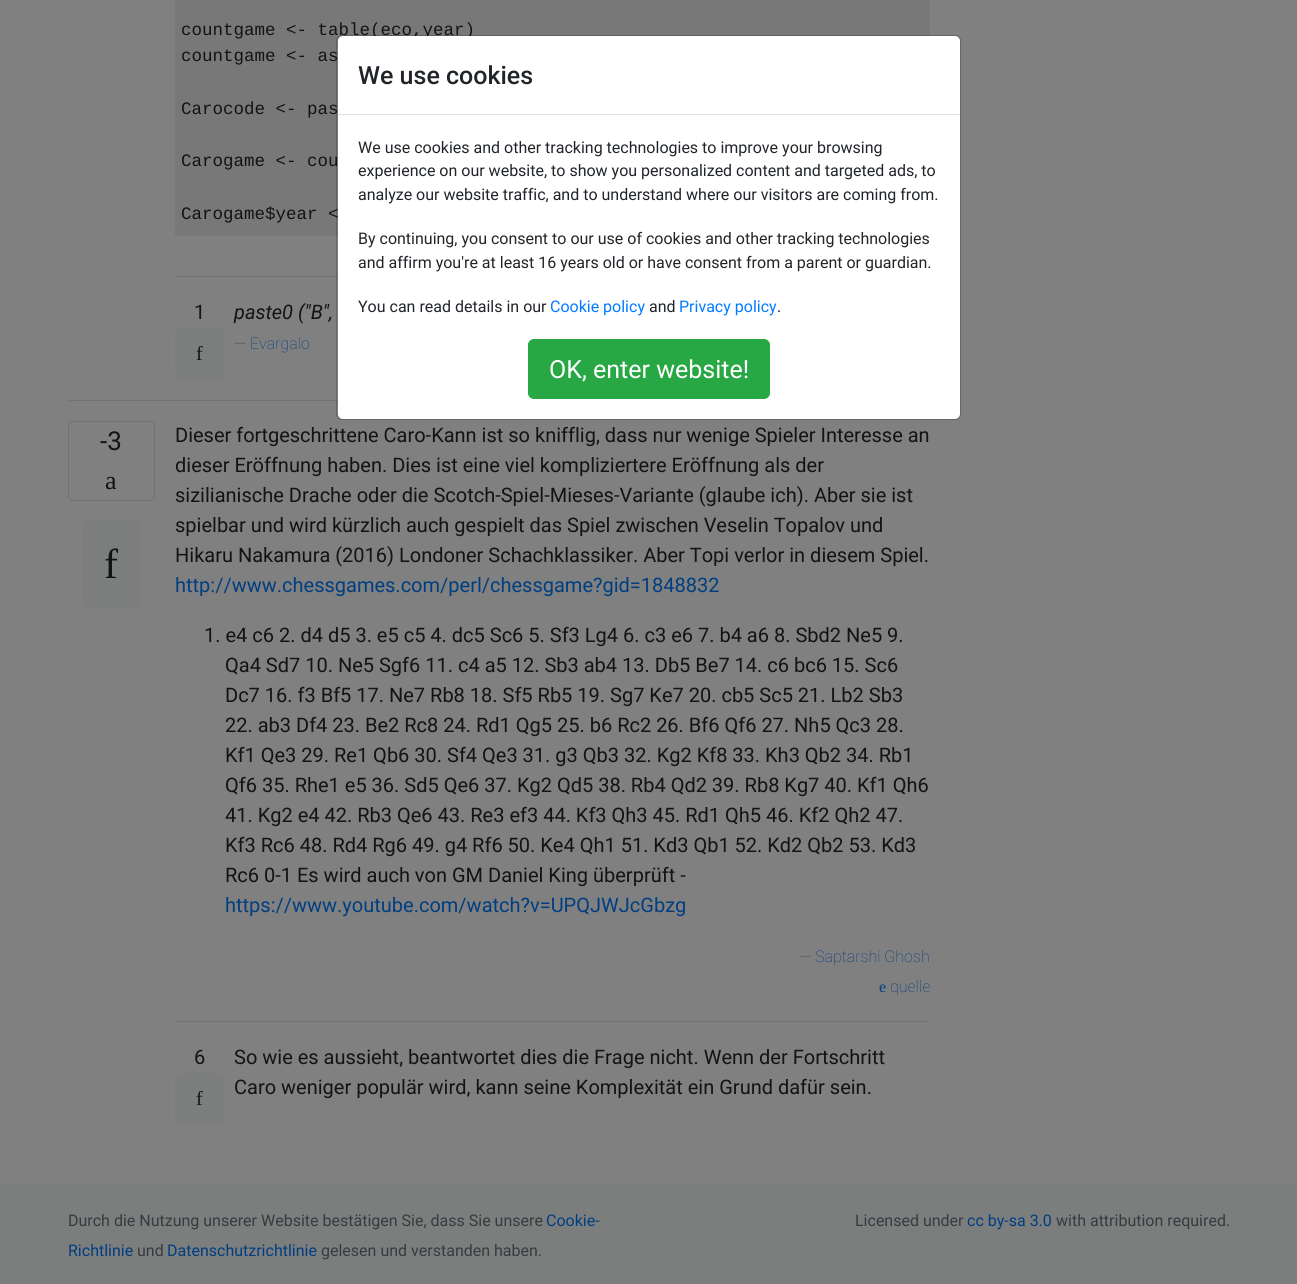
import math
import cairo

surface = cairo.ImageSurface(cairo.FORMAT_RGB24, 1297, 1284)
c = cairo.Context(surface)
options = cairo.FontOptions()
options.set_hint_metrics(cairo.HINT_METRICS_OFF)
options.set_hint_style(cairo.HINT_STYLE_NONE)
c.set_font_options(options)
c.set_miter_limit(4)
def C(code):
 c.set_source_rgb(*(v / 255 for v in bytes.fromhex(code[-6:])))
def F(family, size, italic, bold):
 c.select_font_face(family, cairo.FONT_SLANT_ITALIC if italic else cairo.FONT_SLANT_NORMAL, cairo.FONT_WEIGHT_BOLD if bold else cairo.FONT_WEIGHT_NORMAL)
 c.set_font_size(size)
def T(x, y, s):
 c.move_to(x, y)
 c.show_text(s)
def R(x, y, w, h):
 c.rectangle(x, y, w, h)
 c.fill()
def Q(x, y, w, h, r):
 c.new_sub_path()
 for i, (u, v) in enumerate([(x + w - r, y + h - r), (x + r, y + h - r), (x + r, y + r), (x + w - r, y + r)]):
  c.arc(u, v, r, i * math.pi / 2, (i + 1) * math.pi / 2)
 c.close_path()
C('808080')
c.paint()
C('787879')
R(175,0,755,236)
F('Liberation Mono',17.5,0,0)
C('111315')
T(181,35,'countgame <- table(eco,year)')
T(181,61,'countgame <- as')
T(181,114,'Carocode <- pas')
T(181,166,'Carogame <- cou')
T(181,219,'Carogame$year <')
C('737373')
R(175,276,163,1)
F('Roboto',20,0,0)
C('111315')
T(194,319,'1')
C('7c7d7d')
Q(175,328,49,52,6)
c.fill()
F('Liberation Serif',20,0,0)
C('111315')
T(196,360,'f')
F('Roboto',20,1,0)
T(234,319,'paste0 ("B",')
F('Roboto Thin',16,0,0)
C('363b3f')
T(234,349,'—')
C('003e80')
T(250,349,'Evargalo')
C('737373')
R(68,400,270,1)
Q(68.5,421.5,86,79,4.5)
C('6f7173')
c.set_line_width(1)
c.stroke()
F('Roboto',26,0,0)
C('111315')
T(100,450,'-3')
F('Liberation Serif',26,0,0)
T(105,489,'a')
C('7c7d7d')
Q(83,521,57,87,6)
c.fill()
F('Liberation Serif',42,0,0)
C('111315')
T(104,578,'f')
F('Roboto',20,0,0)
T(175,442,'Dieser fortgeschrittene Caro-Kann ist so knifflig, dass nur wenige Spieler Interesse an')
T(175,472,'dieser Eröffnung haben. Dies ist eine viel kompliziertere Eröffnung als der')
T(175,502,'sizilianische Drache oder die Scotch-Spiel-Mieses-Variante (glaube ich). Aber sie ist')
T(175,532,'spielbar und wird kürzlich auch gespielt das Spiel zwischen Veselin Topalov und')
T(175,562,'Hikaru Nakamura (2016) Londoner Schachklassiker. Aber Topi verlor in diesem Spiel.')
C('003e80')
T(175,592,'http://www.chessgames.com/perl/chessgame?gid=1848832')
C('111315')
T(204,642,'1. e4 c6 2. d4 d5 3. e5 c5 4. dc5 Sc6 5. Sf3 Lg4 6. c3 e6 7. b4 a6 8. Sbd2 Ne5 9.')
T(225,672,'Qa4 Sd7 10. Ne5 Sgf6 11. c4 a5 12. Sb3 ab4 13. Db5 Be7 14. c6 bc6 15. Sc6')
T(225,702,'Dc7 16. f3 Bf5 17. Ne7 Rb8 18. Sf5 Rb5 19. Sg7 Ke7 20. cb5 Sc5 21. Lb2 Sb3')
T(225,732,'22. ab3 Df4 23. Be2 Rc8 24. Rd1 Qg5 25. b6 Rc2 26. Bf6 Qf6 27. Nh5 Qc3 28.')
T(225,762,'Kf1 Qe3 29. Re1 Qb6 30. Sf4 Qe3 31. g3 Qb3 32. Kg2 Kf8 33. Kh3 Qb2 34. Rb1')
T(225,792,'Qf6 35. Rhe1 e5 36. Sd5 Qe6 37. Kg2 Qd5 38. Rb4 Qd2 39. Rb8 Kg7 40. Kf1 Qh6')
T(225,822,'41. Kg2 e4 42. Rb3 Qe6 43. Re3 ef3 44. Kf3 Qh3 45. Rd1 Qh5 46. Kf2 Qh2 47.')
T(225,852,'Kf3 Rc6 48. Rd4 Rg6 49. g4 Rf6 50. Ke4 Qh1 51. Kd3 Qb1 52. Kd2 Qb2 53. Kd3')
T(225,882,'Rc6 0-1 Es wird auch von GM Daniel King überprüft -')
C('003e80')
T(225,912,'https://www.youtube.com/watch?v=UPQJWJcGbzg')
F('Roboto Thin',16,0,0)
C('363b3f')
T(799,962,'—')
C('003e80')
T(815,962,'Saptarshi Ghosh')
F('Liberation Serif',16,0,0)
T(879,992,'e')
F('Roboto Thin',16,0,0)
T(890,992,'quelle')
C('737373')
R(175,1021,755,1)
F('Roboto',20,0,0)
C('111315')
T(194,1064,'6')
C('7c7d7d')
Q(175,1073,49,52,6)
c.fill()
F('Liberation Serif',20,0,0)
C('111315')
T(196,1105,'f')
F('Roboto',20,0,0)
T(234,1064,'So wie es aussieht, beantwortet dies die Frage nicht. Wenn der Fortschritt')
T(234,1094,'Caro weniger populär wird, kann seine Komplexität ein Grund dafür sein.')
C('ffffff')
Q(338,36,622,383,5)
c.fill()
Q(336.5,35.5,624,384,5.5)
c.set_source_rgba(0,0,0,0.2)
c.stroke()
C('dee2e6')
R(338,114,622,1)
F('Roboto Medium',25,0,0)
C('212529')
T(358,84,'We use cookies')
F('Roboto',16,0,0)
T(358,153,'We use cookies and other tracking technologies to improve your browsing')
T(358,176,'experience on our website, to show you personalized content and targeted ads, to')
T(358,200,'analyze our website traffic, and to understand where our visitors are coming from.')
T(358,244,'By continuing, you consent to our use of cookies and other tracking technologies')
T(358,268,'and affirm you\'re at least 16 years old or have consent from a parent or guardian.')
T(358,312,'You can read details in our')
C('007bff')
T(550,312,'Cookie policy')
C('212529')
T(649,312,'and')
C('007bff')
T(679,312,'Privacy policy')
C('212529')
T(777,312,'.')
C('28a745')
Q(528.5,339.5,241,59,5.5)
c.fill_preserve()
c.stroke()
F('Roboto',25,0,0)
C('ffffff')
T(549,378,'OK, enter website!')
C('7c7d7d')
R(0,1185,1297,99)
F('Roboto',16,0,0)
C('363b3f')
T(68,1226,'Durch die Nutzung unserer Website bestätigen Sie, dass Sie unsere')
C('003e80')
T(546,1226,'Cookie-')
T(68,1256,'Richtlinie')
C('363b3f')
T(137,1256,'und')
C('003e80')
T(167,1256,'Datenschutzrichtlinie')
C('363b3f')
T(321,1256,'gelesen und verstanden haben.')
T(855,1226,'Licensed under')
C('003e80')
T(967,1226,'cc by-sa 3.0')
C('363b3f')
T(1056,1226,'with attribution required.')
surface.write_to_png('o.png')
